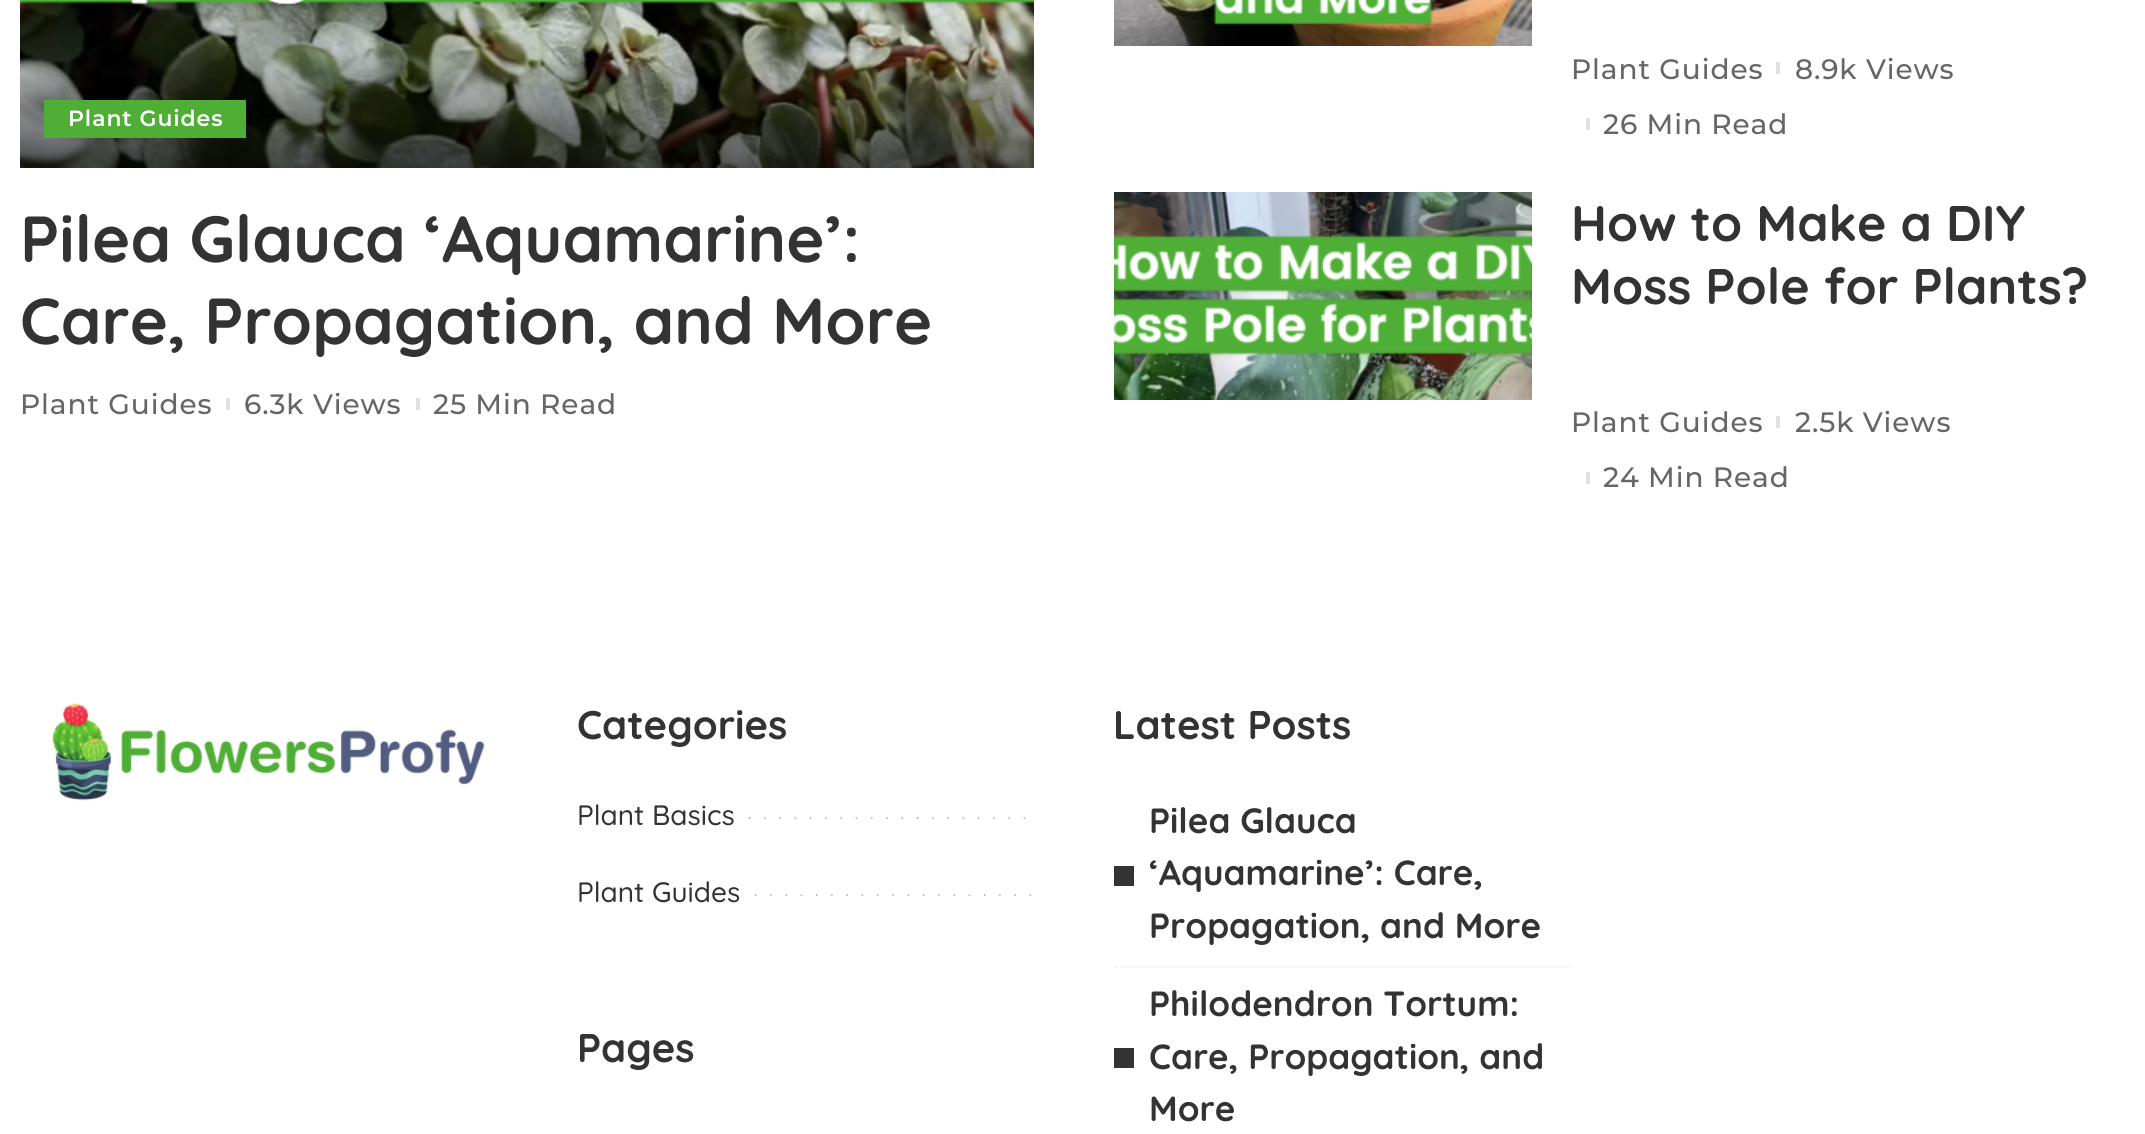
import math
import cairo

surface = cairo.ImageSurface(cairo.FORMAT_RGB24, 2145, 1134)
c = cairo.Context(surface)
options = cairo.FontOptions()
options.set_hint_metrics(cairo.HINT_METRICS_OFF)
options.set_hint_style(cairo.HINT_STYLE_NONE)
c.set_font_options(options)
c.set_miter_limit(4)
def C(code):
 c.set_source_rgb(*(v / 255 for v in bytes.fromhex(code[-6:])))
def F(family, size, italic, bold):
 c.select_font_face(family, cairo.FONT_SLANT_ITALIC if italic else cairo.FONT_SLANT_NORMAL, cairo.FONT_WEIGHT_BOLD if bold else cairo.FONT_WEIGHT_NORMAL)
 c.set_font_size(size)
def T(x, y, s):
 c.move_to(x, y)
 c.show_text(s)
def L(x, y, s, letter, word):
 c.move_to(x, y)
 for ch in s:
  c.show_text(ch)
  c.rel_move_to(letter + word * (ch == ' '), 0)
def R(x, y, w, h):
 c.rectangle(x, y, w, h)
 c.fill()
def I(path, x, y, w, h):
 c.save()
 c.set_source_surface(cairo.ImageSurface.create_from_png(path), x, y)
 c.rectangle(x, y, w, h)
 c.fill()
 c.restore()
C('ffffff')
c.paint()
I('1.png',20,0,1014,168)
C('4fae36')
R(44,100,202,38)
F('Montserrat SemiBold',22,0,0)
C('ffffff')
L(68,126,'Plant Guides',.9,0)
F('Quicksand',65,0,1)
C('333333')
T(20,262,'Pilea Glauca ‘Aquamarine’:')
T(20,344,'Care, Propagation, and More')
F('Montserrat Medium',28,0,0)
C('666666')
L(20,414,'Plant Guides',.9,0)
C('e0e0e0')
R(226,398,4,12)
C('666666')
L(244,414,'6.3k Views',.9,0)
C('e0e0e0')
R(416,398,4,12)
C('666666')
L(433,414,'25 Min Read',.9,0)
I('2.png',1114,0,418,46)
L(1571,79,'Plant Guides',.9,0)
C('e0e0e0')
R(1776,62,4,12)
C('666666')
L(1795,79,'8.9k Views',.9,0)
C('e0e0e0')
R(1586,118,4,12)
C('666666')
L(1603,134,'26 Min Read',.9,0)
I('3.png',1114,192,418,208)
F('Quicksand',50,0,1)
C('333333')
T(1571,241,'How to Make a DIY')
T(1571,304,'Moss Pole for Plants?')
F('Montserrat Medium',28,0,0)
C('666666')
L(1571,432,'Plant Guides',.9,0)
C('e0e0e0')
R(1776,416,4,12)
C('666666')
L(1795,432,'2.5k Views',.9,0)
C('e0e0e0')
R(1586,472,4,12)
C('666666')
L(1603,487,'24 Min Read',.9,0)
I('4.png',52,702,433,99)
F('Quicksand',40,0,1)
C('333333')
T(577,739,'Categories')
F('Quicksand Medium',28,0,0)
T(577,825,'Plant Basics')
F('Quicksand Medium',16,0,0)
C('adadad')
L(748,819,'...................',12,0)
F('Quicksand Medium',28,0,0)
C('333333')
T(577,902,'Plant Guides')
F('Quicksand Medium',16,0,0)
C('adadad')
L(754,896,'...................',12,0)
F('Quicksand',40,0,1)
C('333333')
T(577,1062,'Pages')
T(1113,739,'Latest Posts')
C('f5f5f5')
R(1114,966,456,2)
C('333333')
R(1114,866,20,20)
F('Quicksand',35,0,1)
T(1149,833,'Pilea Glauca')
T(1149,885,'‘Aquamarine’: Care,')
T(1149,938,'Propagation, and More')
R(1114,1048,20,20)
T(1149,1016,'Philodendron Tortum:')
T(1149,1069,'Care, Propagation, and')
T(1149,1121,'More')
surface.write_to_png('o.png')
